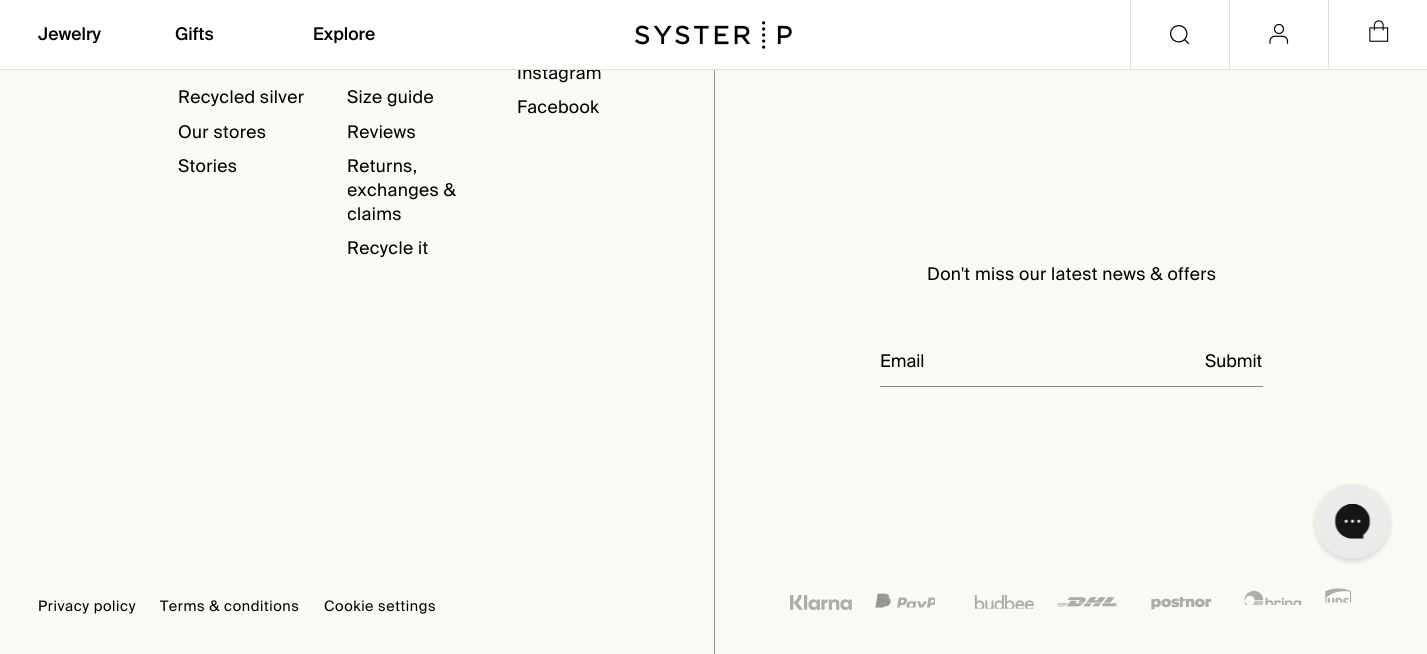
import math
import cairo

surface = cairo.ImageSurface(cairo.FORMAT_RGB24, 1427, 654)
c = cairo.Context(surface)
options = cairo.FontOptions()
options.set_hint_metrics(cairo.HINT_METRICS_OFF)
options.set_hint_style(cairo.HINT_STYLE_NONE)
c.set_font_options(options)
c.set_miter_limit(4)
def C(code):
 c.set_source_rgb(*(v / 255 for v in bytes.fromhex(code[-6:])))
def F(family, size, italic, bold):
 c.select_font_face(family, cairo.FONT_SLANT_ITALIC if italic else cairo.FONT_SLANT_NORMAL, cairo.FONT_WEIGHT_BOLD if bold else cairo.FONT_WEIGHT_NORMAL)
 c.set_font_size(size)
def T(x, y, s):
 c.move_to(x, y)
 c.show_text(s)
def L(x, y, s, letter, word):
 c.move_to(x, y)
 for ch in s:
  c.show_text(ch)
  c.rel_move_to(letter + word * (ch == ' '), 0)
def R(x, y, w, h):
 c.rectangle(x, y, w, h)
 c.fill()
def I(path, x, y, w, h):
 c.save()
 c.set_source_surface(cairo.ImageSurface.create_from_png(path), x, y)
 c.rectangle(x, y, w, h)
 c.fill()
 c.restore()
C('fafaf5')
c.paint()
F('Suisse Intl',17.5,0,0)
C('000000')
L(517,79,'Instagram',.35,0)
C('ffffff')
R(0,0,1427,69)
C('e1dfdd')
R(0,69,1427,1)
F('Suisse Intl Medium',17.5,0,0)
C('000000')
T(38,40,'Jewelry')
T(175,40,'Gifts')
T(313,40,'Explore')
I('1.png',635,21,157,28)
C('e1dfdd')
R(1130,0,1,69)
I('2.png',1170,25,20,20)
R(1229,0,1,69)
I('3.png',1269,24,20,20)
R(1328,0,1,69)
I('4.png',1369,20,20,22)
F('Suisse Intl',17.5,0,0)
C('000000')
L(178,103,'Recycled silver',.35,0)
L(178,138,'Our stores',.35,0)
L(178,172,'Stories',.35,0)
L(347,103,'Size guide',.35,0)
L(347,138,'Reviews',.35,0)
L(347,172,'Returns,',.35,0)
c.save()
c.rectangle(348,3,158,308)
c.clip()
L(347,196,'exchanges &',.35,0)
L(347,220,'claims',.35,0)
c.restore()
L(347,254,'Recycle it',.35,0)
L(517,113,'Facebook',.35,0)
F('Suisse Intl',14.4,0,0)
L(38,611,'Privacy policy',.6,0)
L(160,611,'Terms & conditions',.6,0)
L(324,611,'Cookie settings',.6,0)
C('8b8b8b')
R(714,70,1,584)
F('Suisse Intl',17.5,0,0)
C('000000')
L(927,280,'Don\'t miss our latest news & offers',.35,0)
C('8b8b8b')
R(880,386,383,1)
C('000000')
T(880,367,'Email')
T(1205,367,'Submit')
I('5.png',790,595,62,15)
I('6.png',875,593,60,15)
I('7.png',974,595,60,14)
I('8.png',1057,597,61,10)
I('9.png',1151,597,61,13)
I('10.png',1244,590,58,15)
I('11.png',1325,588,27,15)
I('12.png',1312,483,81,81)
surface.write_to_png('o.png')
